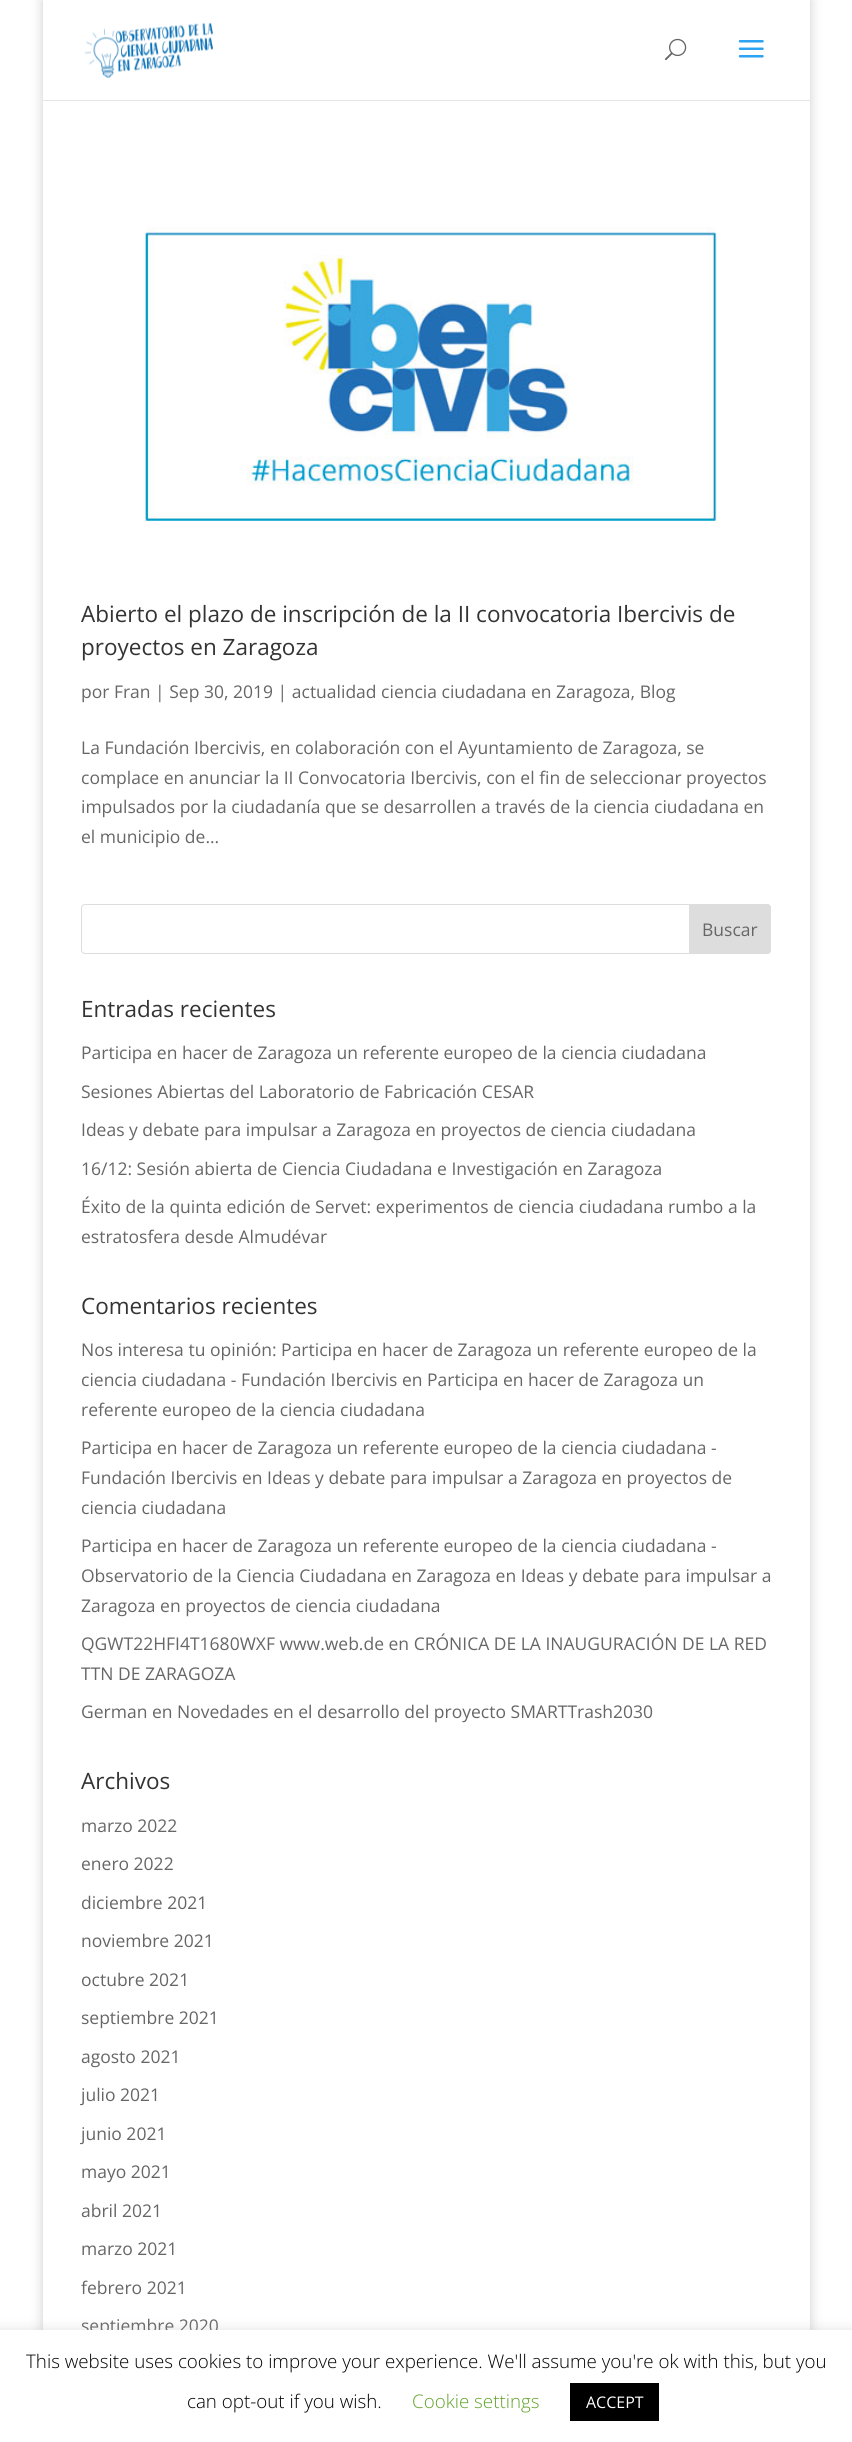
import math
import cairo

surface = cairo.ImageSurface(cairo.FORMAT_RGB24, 852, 2442)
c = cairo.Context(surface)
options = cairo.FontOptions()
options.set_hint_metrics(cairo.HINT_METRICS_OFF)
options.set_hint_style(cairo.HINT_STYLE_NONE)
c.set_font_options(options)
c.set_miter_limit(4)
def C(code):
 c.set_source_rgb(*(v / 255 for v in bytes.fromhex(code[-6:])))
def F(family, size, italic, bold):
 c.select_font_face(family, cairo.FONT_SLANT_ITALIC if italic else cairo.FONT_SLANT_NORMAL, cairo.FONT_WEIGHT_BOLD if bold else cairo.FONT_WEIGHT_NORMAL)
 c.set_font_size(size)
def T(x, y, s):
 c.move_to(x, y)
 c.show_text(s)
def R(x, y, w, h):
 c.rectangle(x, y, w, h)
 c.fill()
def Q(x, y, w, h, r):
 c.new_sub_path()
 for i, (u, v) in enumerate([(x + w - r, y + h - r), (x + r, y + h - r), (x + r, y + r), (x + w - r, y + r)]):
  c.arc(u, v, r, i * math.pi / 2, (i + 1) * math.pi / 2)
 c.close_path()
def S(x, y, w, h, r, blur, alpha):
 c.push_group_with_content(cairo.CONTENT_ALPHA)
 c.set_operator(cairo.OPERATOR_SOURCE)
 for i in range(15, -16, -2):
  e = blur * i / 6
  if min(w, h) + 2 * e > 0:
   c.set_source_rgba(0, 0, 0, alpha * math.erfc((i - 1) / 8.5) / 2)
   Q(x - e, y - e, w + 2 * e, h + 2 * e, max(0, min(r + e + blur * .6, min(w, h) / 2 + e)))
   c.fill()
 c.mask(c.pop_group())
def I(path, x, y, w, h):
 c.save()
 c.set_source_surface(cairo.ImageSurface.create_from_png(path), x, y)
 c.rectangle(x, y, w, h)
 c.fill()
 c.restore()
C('ffffff')
c.paint()
c.save()
c.set_fill_rule(cairo.FILL_RULE_EVEN_ODD)
c.new_path()
c.move_to(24,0)
c.line_to(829,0)
c.line_to(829,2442)
c.line_to(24,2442)
c.close_path()
c.move_to(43,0)
c.line_to(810,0)
c.line_to(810,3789)
c.line_to(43,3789)
c.close_path()
c.clip()
C('000000')
S(43,0,767,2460,0,6,.2)
c.restore()
C('e6e6e6')
R(43,100,767,1)
I('1.png',85,22,128,56)
I('2.png',665,38,22,23)
I('3.png',738,40,26,18)
I('4.png',145,226,572,295)
F('Open Sans',22.5,0,0)
C('333333')
T(81,622,'Abierto el plazo de inscripción de la II convocatoria Ibercivis de')
T(81,655,'proyectos en Zaragoza')
F('Open Sans',17.5,0,0)
C('666666')
T(81,698,'por Fran | Sep 30, 2019 | actualidad ciencia ciudadana en Zaragoza, Blog')
T(81,754,'La Fundación Ibercivis, en colaboración con el Ayuntamiento de Zaragoza, se')
T(81,784,'complace en anunciar la II Convocatoria Ibercivis, con el fin de seleccionar proyectos')
T(81,813,'impulsados por la ciudadanía que se desarrollen a través de la ciencia ciudadana en')
T(81,843,'el municipio de...')
Q(81.5,904.5,689,49,3.5)
C('dddddd')
c.set_line_width(1)
c.stroke()
c.new_path()
c.move_to(689.5,904.5)
c.line_to(767,904.5)
c.curve_to(769,904.5,770.5,906,770.5,908)
c.line_to(770.5,950)
c.curve_to(770.5,952,769,953.5,767,953.5)
c.line_to(689.5,953.5)
c.close_path()
c.fill_preserve()
c.stroke()
C('666666')
T(702,936,'Buscar')
F('Open Sans',22.5,0,0)
C('333333')
T(81,1017,'Entradas recientes')
F('Open Sans',17.5,0,0)
C('666666')
T(81,1059,'Participa en hacer de Zaragoza un referente europeo de la ciencia ciudadana')
T(81,1098,'Sesiones Abiertas del Laboratorio de Fabricación CESAR')
T(81,1136,'Ideas y debate para impulsar a Zaragoza en proyectos de ciencia ciudadana')
T(81,1175,'16/12: Sesión abierta de Ciencia Ciudadana e Investigación en Zaragoza')
T(81,1213,'Éxito de la quinta edición de Servet: experimentos de ciencia ciudadana rumbo a la')
T(81,1243,'estratosfera desde Almudévar')
F('Open Sans',22.5,0,0)
C('333333')
T(81,1314,'Comentarios recientes')
F('Open Sans',17.5,0,0)
C('666666')
T(81,1356,'Nos interesa tu opinión: Participa en hacer de Zaragoza un referente europeo de la')
T(81,1386,'ciencia ciudadana - Fundación Ibercivis en Participa en hacer de Zaragoza un')
T(81,1416,'referente europeo de la ciencia ciudadana')
T(81,1454,'Participa en hacer de Zaragoza un referente europeo de la ciencia ciudadana -')
T(81,1484,'Fundación Ibercivis en Ideas y debate para impulsar a Zaragoza en proyectos de')
T(81,1514,'ciencia ciudadana')
T(81,1552,'Participa en hacer de Zaragoza un referente europeo de la ciencia ciudadana -')
T(81,1582,'Observatorio de la Ciencia Ciudadana en Zaragoza en Ideas y debate para impulsar a')
T(81,1612,'Zaragoza en proyectos de ciencia ciudadana')
T(81,1650,'QGWT22HFI4T1680WXF www.web.de en CRÓNICA DE LA INAUGURACIÓN DE LA RED')
T(81,1680,'TTN DE ZARAGOZA')
T(81,1718,'German en Novedades en el desarrollo del proyecto SMARTTrash2030')
F('Open Sans',22.5,0,0)
C('333333')
T(81,1789,'Archivos')
F('Open Sans',17.5,0,0)
C('666666')
T(81,1832,'marzo 2022')
T(81,1870,'enero 2022')
T(81,1909,'diciembre 2021')
T(81,1947,'noviembre 2021')
T(81,1986,'octubre 2021')
T(81,2024,'septiembre 2021')
T(81,2063,'agosto 2021')
T(81,2101,'julio 2021')
T(81,2140,'junio 2021')
T(81,2178,'mayo 2021')
T(81,2217,'abril 2021')
T(81,2255,'marzo 2021')
T(81,2294,'febrero 2021')
T(81,2332,'septiembre 2020')
C('acabab')
S(0,2329,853,112,0,6,.3)
C('ffffff')
R(0,2330,852,112)
F('Open Sans Light',18.75,0,0)
C('000000')
T(26,2368,'This website uses cookies to improve your experience. We\'ll assume you\'re ok with this, but you')
T(187,2408,'can opt-out if you wish.')
C('62a329')
T(412,2408,'Cookie settings')
C('000000')
R(570,2383,89,38)
F('Open Sans',16,0,0)
C('ffffff')
T(586,2408,'ACCEPT')
surface.write_to_png('o.png')
